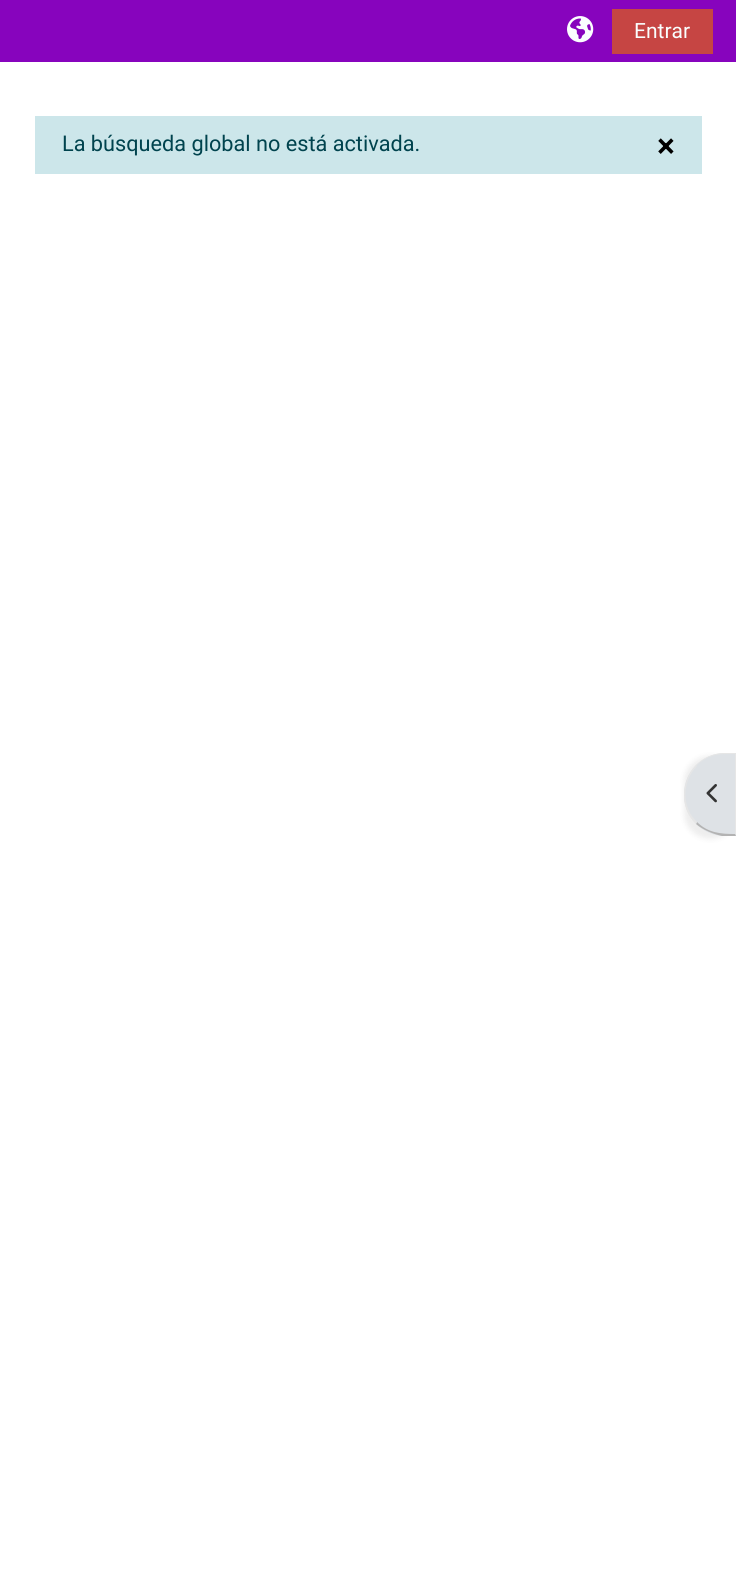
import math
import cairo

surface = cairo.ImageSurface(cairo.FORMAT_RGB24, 736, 1587)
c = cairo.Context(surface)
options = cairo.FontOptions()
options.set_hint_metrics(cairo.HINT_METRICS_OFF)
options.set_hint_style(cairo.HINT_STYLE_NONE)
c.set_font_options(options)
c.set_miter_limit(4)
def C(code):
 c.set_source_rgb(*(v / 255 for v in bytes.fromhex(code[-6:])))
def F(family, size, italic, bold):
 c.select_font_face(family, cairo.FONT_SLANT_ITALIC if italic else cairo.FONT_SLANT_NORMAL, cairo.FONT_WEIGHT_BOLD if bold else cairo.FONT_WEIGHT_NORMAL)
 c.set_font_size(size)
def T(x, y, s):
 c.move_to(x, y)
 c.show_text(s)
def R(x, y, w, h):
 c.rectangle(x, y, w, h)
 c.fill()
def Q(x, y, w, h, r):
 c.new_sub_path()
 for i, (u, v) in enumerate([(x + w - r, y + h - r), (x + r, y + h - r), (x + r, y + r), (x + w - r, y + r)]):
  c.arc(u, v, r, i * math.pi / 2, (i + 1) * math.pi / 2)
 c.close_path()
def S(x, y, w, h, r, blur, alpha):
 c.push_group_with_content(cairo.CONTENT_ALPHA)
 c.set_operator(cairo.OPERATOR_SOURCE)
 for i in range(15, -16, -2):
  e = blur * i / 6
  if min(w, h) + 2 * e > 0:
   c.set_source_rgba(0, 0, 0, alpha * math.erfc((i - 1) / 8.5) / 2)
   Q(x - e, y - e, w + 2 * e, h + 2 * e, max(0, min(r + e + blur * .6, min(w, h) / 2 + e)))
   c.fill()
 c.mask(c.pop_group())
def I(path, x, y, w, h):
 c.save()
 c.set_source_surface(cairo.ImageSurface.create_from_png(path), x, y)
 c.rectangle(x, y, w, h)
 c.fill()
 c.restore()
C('ffffff')
c.paint()
C('8704bd')
R(0,0,736,62)
I('1.png',567,16,27,27)
C('c64543')
R(612,9,101,45)
F('Roboto',21,0,0)
C('fafefe')
T(634,38,'Entrar')
C('cce6ea')
R(35,116,667,58)
F('Roboto',21.7,0,0)
C('00434e')
T(62,151,'La búsqueda global no está activada.')
F('Roboto',32,0,1)
C('000000')
T(657,157,'×')
C('000000')
S(684,756,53,83,41,3,.07)
C('dee2e6')
c.new_path()
c.move_to(725,753)
c.line_to(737,753)
c.line_to(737,836)
c.line_to(725,836)
c.curve_to(702.5,836,684,817.5,684,795)
c.line_to(684,794)
c.curve_to(684,771.5,702.5,753,725,753)
c.close_path()
c.fill()
C('e6e6e6')
c.new_path()
c.move_to(725,753)
c.curve_to(713,753,703,758,696,765)
c.line_to(696.5,765.5)
c.curve_to(703.5,758.5,713,754,725,754)
c.line_to(735,754)
c.line_to(735,754.5)
c.line_to(736,753.5)
c.line_to(736,753)
c.close_path()
c.fill()
c.new_path()
c.move_to(736,754)
c.line_to(736,835)
c.line_to(735,834)
c.line_to(735,754)
c.close_path()
c.fill()
C('b3b3b3')
c.new_path()
c.move_to(722,836)
c.curve_to(713,834,703,830,696,824)
c.line_to(697,822)
c.curve_to(708,833,721,834,735,834)
c.line_to(736,836)
c.close_path()
c.fill()
C('e6e6e6')
c.new_path()
c.move_to(696,765)
c.curve_to(681,781,679,808,696,824)
c.line_to(697,822)
c.curve_to(681,807,682,781,697,766)
c.close_path()
c.fill()
I('2.png',706,784,11,19)
surface.write_to_png('o.png')
